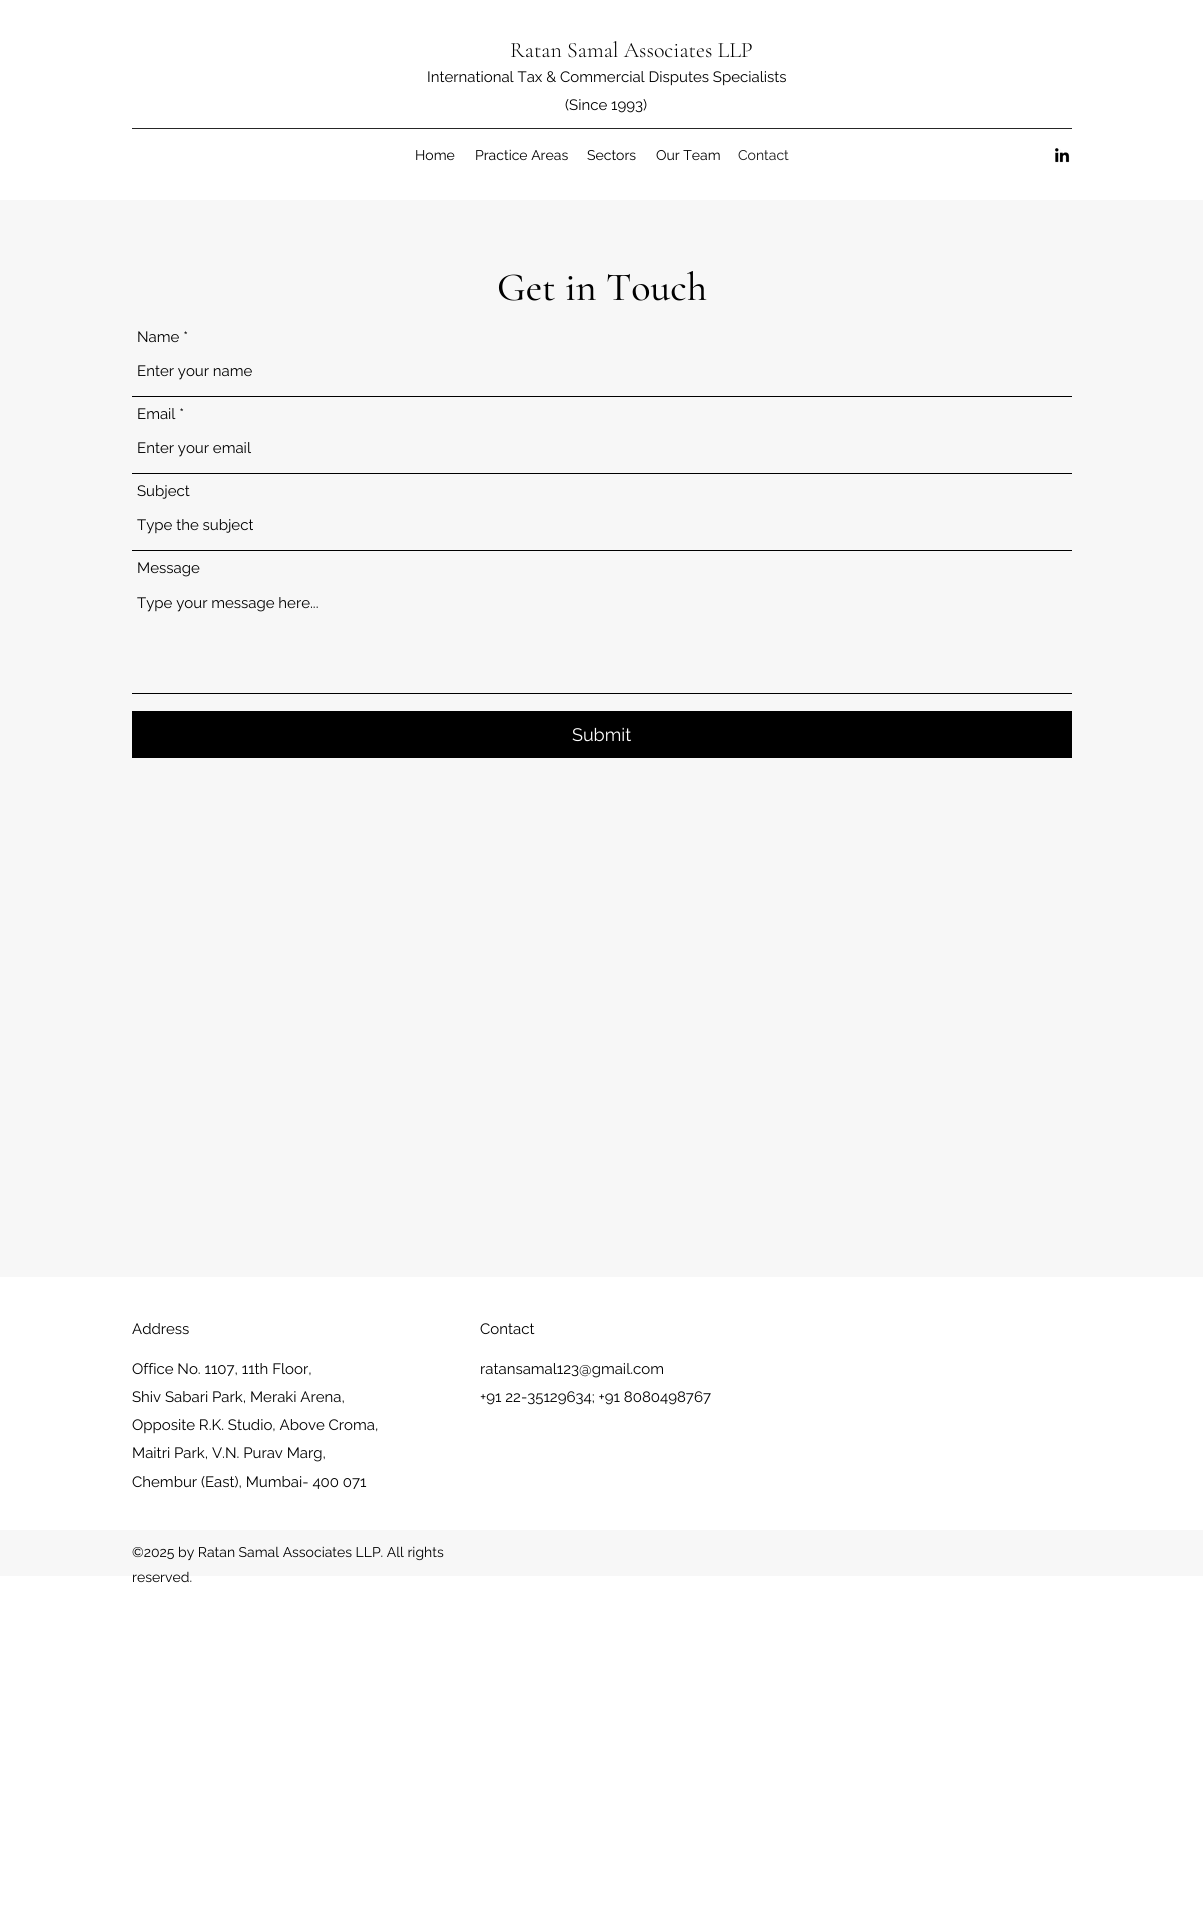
import math
import cairo

surface = cairo.ImageSurface(cairo.FORMAT_RGB24, 1203, 1907)
c = cairo.Context(surface)
options = cairo.FontOptions()
options.set_hint_metrics(cairo.HINT_METRICS_OFF)
options.set_hint_style(cairo.HINT_STYLE_NONE)
c.set_font_options(options)
c.set_miter_limit(4)
def C(code):
 c.set_source_rgb(*(v / 255 for v in bytes.fromhex(code[-6:])))
def F(family, size, italic, bold):
 c.select_font_face(family, cairo.FONT_SLANT_ITALIC if italic else cairo.FONT_SLANT_NORMAL, cairo.FONT_WEIGHT_BOLD if bold else cairo.FONT_WEIGHT_NORMAL)
 c.set_font_size(size)
def T(x, y, s):
 c.move_to(x, y)
 c.show_text(s)
def R(x, y, w, h):
 c.rectangle(x, y, w, h)
 c.fill()
def I(path, x, y, w, h):
 c.save()
 c.set_source_surface(cairo.ImageSurface.create_from_png(path), x, y)
 c.rectangle(x, y, w, h)
 c.fill()
 c.restore()
C('ffffff')
c.paint()
F('Cormorant Garamond Light',22,0,0)
C('000000')
T(510,57,'Ratan Samal Associates LLP')
F('Raleway',15,0,0)
T(427,82,'International Tax & Commercial Disputes Specialists')
T(565,110,'(Since 1993)')
C('262626')
R(132,128,940,1)
F('Raleway',14,0,0)
C('000000')
T(415,160,'Home')
T(475,160,'Practice Areas')
T(587,160,'Sectors')
T(656,160,'Our Team')
C('191919')
T(738,160,'Contact')
I('1.png',1055,148,15,15)
C('f7f7f7')
R(0,200,1203,1077)
F('Cormorant Garamond Medium',40,0,0)
C('000000')
T(497,300,'Get in Touch')
F('Raleway',15,0,0)
T(137,342,'Name *')
R(132,396,940,1)
T(137,376,'Enter your name')
T(137,419,'Email *')
R(132,473,940,1)
T(137,453,'Enter your email')
T(137,496,'Subject')
R(132,550,940,1)
T(137,530,'Type the subject')
T(137,573,'Message')
R(132,693,940,1)
T(137,608,'Type your message here...')
R(132,711,940,47)
F('Raleway',18,0,0)
C('ffffff')
T(572,741,'Submit')
F('Raleway',15,0,0)
C('000000')
T(132,1334,'Address')
T(480,1334,'Contact')
T(132,1374,'Office No. 1107, 11th Floor,')
T(132,1402,'Shiv Sabari Park, Meraki Arena,')
T(132,1430,'Opposite R.K. Studio, Above Croma,')
T(132,1458,'Maitri Park, V.N. Purav Marg,')
T(132,1487,'Chembur (East), Mumbai- 400 071')
T(480,1374,'ratansamal123@gmail.com')
T(480,1402,'+91 22-35129634; +91 8080498767')
C('f7f7f7')
R(0,1530,1203,46)
F('Raleway',14,0,0)
C('000000')
T(132,1557,'©2025 by Ratan Samal Associates LLP. All rights')
T(132,1582,'reserved.')
surface.write_to_png('o.png')
